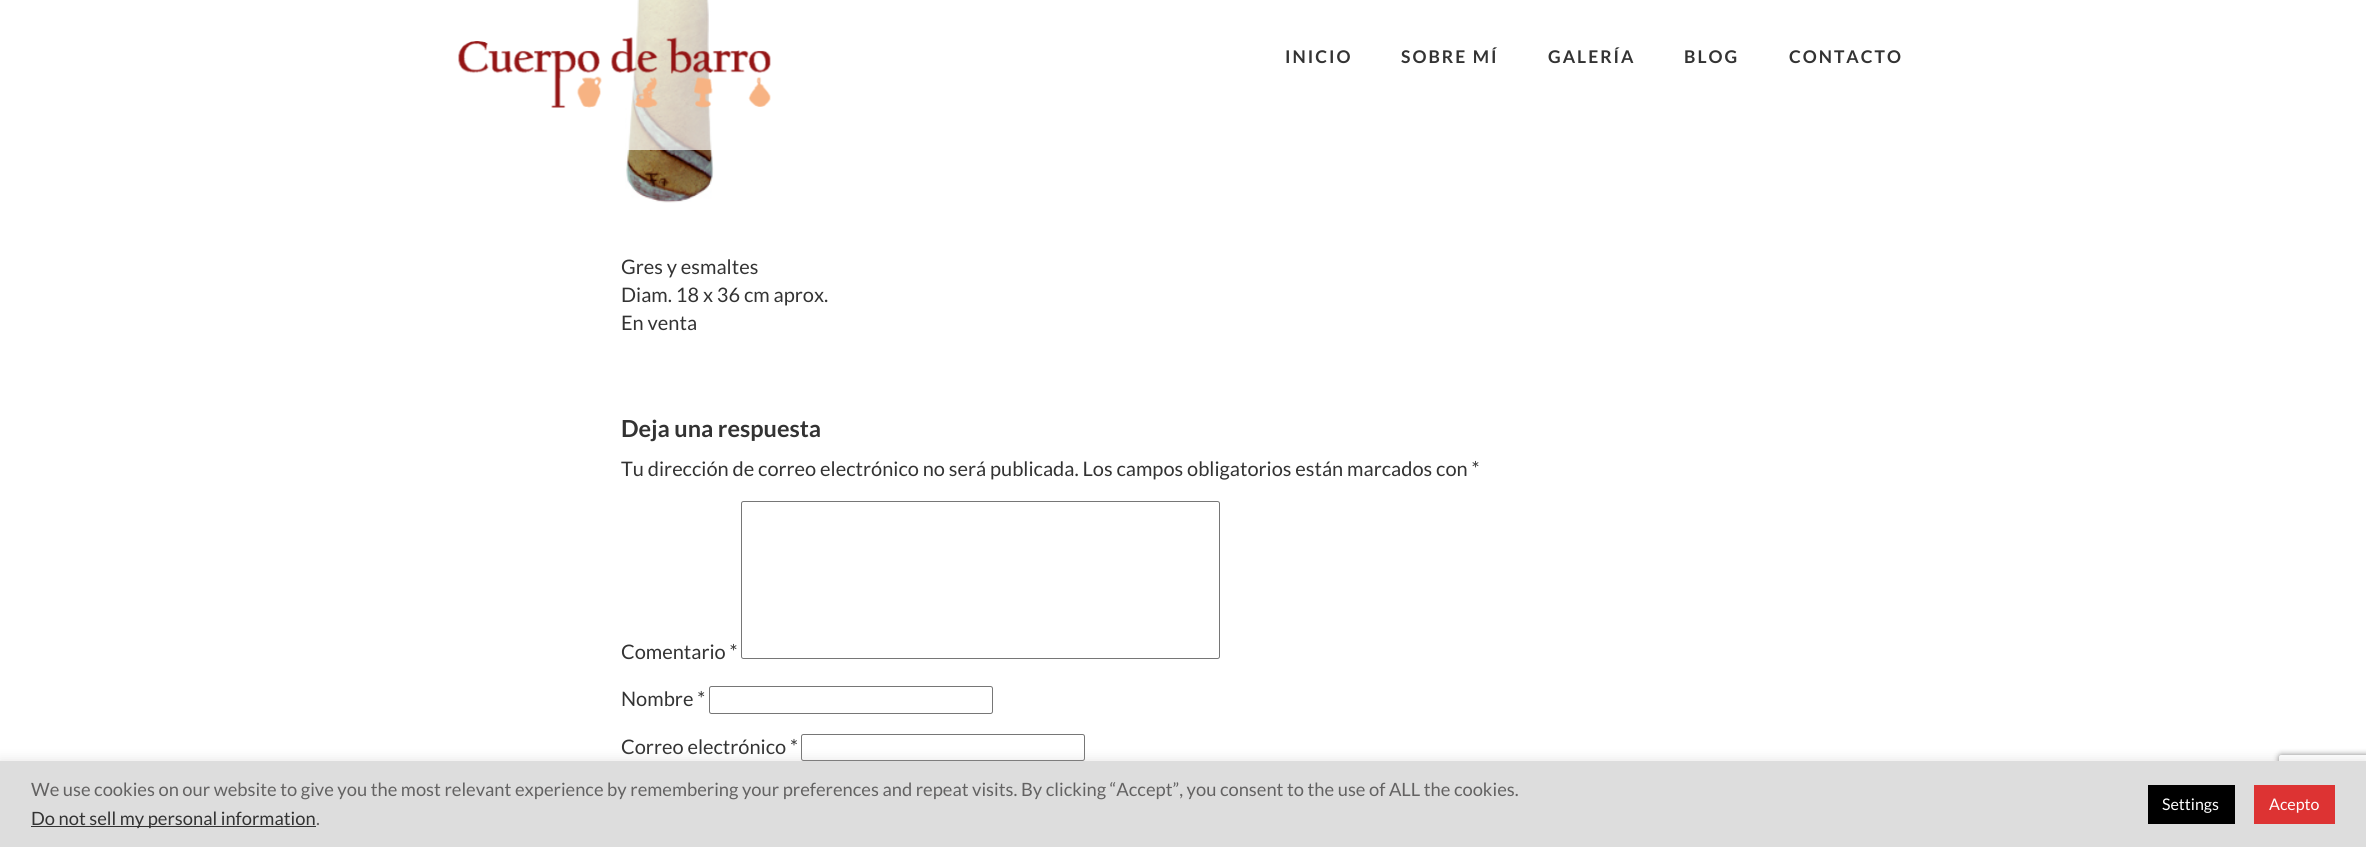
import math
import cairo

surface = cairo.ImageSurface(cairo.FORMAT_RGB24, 2366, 847)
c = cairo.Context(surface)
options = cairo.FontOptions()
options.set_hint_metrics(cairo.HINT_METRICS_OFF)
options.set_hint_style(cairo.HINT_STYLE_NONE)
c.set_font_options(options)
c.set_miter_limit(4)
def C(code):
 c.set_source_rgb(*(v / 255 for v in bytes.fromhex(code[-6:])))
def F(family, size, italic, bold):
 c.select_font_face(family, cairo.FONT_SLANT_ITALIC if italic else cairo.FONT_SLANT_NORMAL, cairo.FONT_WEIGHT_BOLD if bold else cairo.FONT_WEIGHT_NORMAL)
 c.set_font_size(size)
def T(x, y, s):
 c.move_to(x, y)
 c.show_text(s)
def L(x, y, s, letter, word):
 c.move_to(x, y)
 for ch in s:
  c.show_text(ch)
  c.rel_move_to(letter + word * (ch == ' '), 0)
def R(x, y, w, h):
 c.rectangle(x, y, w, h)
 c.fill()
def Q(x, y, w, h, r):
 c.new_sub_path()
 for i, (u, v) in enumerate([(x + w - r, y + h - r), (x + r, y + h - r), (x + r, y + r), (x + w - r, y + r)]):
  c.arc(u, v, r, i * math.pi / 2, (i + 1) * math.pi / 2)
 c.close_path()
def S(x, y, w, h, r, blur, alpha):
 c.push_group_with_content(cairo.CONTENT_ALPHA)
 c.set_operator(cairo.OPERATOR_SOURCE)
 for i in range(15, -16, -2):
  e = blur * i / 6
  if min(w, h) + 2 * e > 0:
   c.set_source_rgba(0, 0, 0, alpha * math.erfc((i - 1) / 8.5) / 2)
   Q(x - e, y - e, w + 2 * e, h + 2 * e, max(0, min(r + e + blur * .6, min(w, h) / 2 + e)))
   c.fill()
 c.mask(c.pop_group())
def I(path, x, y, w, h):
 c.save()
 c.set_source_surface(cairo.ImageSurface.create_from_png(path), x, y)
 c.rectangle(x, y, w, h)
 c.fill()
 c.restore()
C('ffffff')
c.paint()
I('2.png',625,0,89,203)
c.set_source_rgba(1,1,1,0.7)
R(627,0,85,150)
I('1.png',458,37,313,71)
F('Lato',17.5,0,1)
C('333333')
L(1285,63,'INICIO',2,0)
L(1401,63,'SOBRE MÍ',2,0)
L(1548,63,'GALERÍA',2,0)
L(1684,63,'BLOG',2,0)
L(1789,63,'CONTACTO',2,0)
F('Lato',20,0,0)
T(621,274,'Gres y esmaltes')
T(621,302,'Diam. 18 x 36 cm aprox.')
T(621,330,'En venta')
F('Lato',23.5,0,1)
T(621,437,'Deja una respuesta')
F('Lato',20,0,0)
T(621,476,'Tu dirección de correo electrónico no será publicada. Los campos obligatorios están marcados con *')
T(621,659,'Comentario *')
Q(741.5,501.5,478,157,2)
C('767676')
c.set_line_width(1)
c.stroke()
C('333333')
T(621,706,'Nombre *')
Q(709.5,686.5,283,27,2)
C('767676')
c.stroke()
C('333333')
T(621,754,'Correo electrónico *')
Q(801.5,734.5,283,26,2)
C('767676')
c.stroke()
c.save()
c.set_fill_rule(cairo.FILL_RULE_EVEN_ODD)
c.new_path()
c.move_to(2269,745)
c.line_to(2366,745)
c.line_to(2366,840)
c.line_to(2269,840)
c.close_path()
c.move_to(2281.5,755)
c.line_to(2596.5,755)
c.curve_to(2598,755,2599,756,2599,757.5)
c.line_to(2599,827.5)
c.curve_to(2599,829,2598,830,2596.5,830)
c.line_to(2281.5,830)
c.curve_to(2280,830,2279,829,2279,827.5)
c.line_to(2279,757.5)
c.curve_to(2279,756,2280,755,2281.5,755)
c.close_path()
c.clip()
C('808080')
S(2279,755,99,75,2.5,3,1)
c.restore()
C('acabab')
S(0,760,2366,86,0,6,.3)
C('dddddd')
R(0,761,2366,86)
F('Lato',18.33,0,0)
C('636262')
T(31,796,'We use cookies on our website to give you the most relevant experience by remembering your preferences and repeat visits. By clicking “Accept”, you consent to the use of ALL the cookies.')
C('333333')
R(31,826,285,1)
T(31,825,'Do not sell my personal information')
C('636262')
T(316,825,'.')
C('000000')
R(2148,785,87,39)
F('Lato',16,0,0)
C('ffffff')
T(2162,810,'Settings')
C('dd3333')
R(2254,785,81,39)
C('ffffff')
T(2269,810,'Acepto')
surface.write_to_png('o.png')
